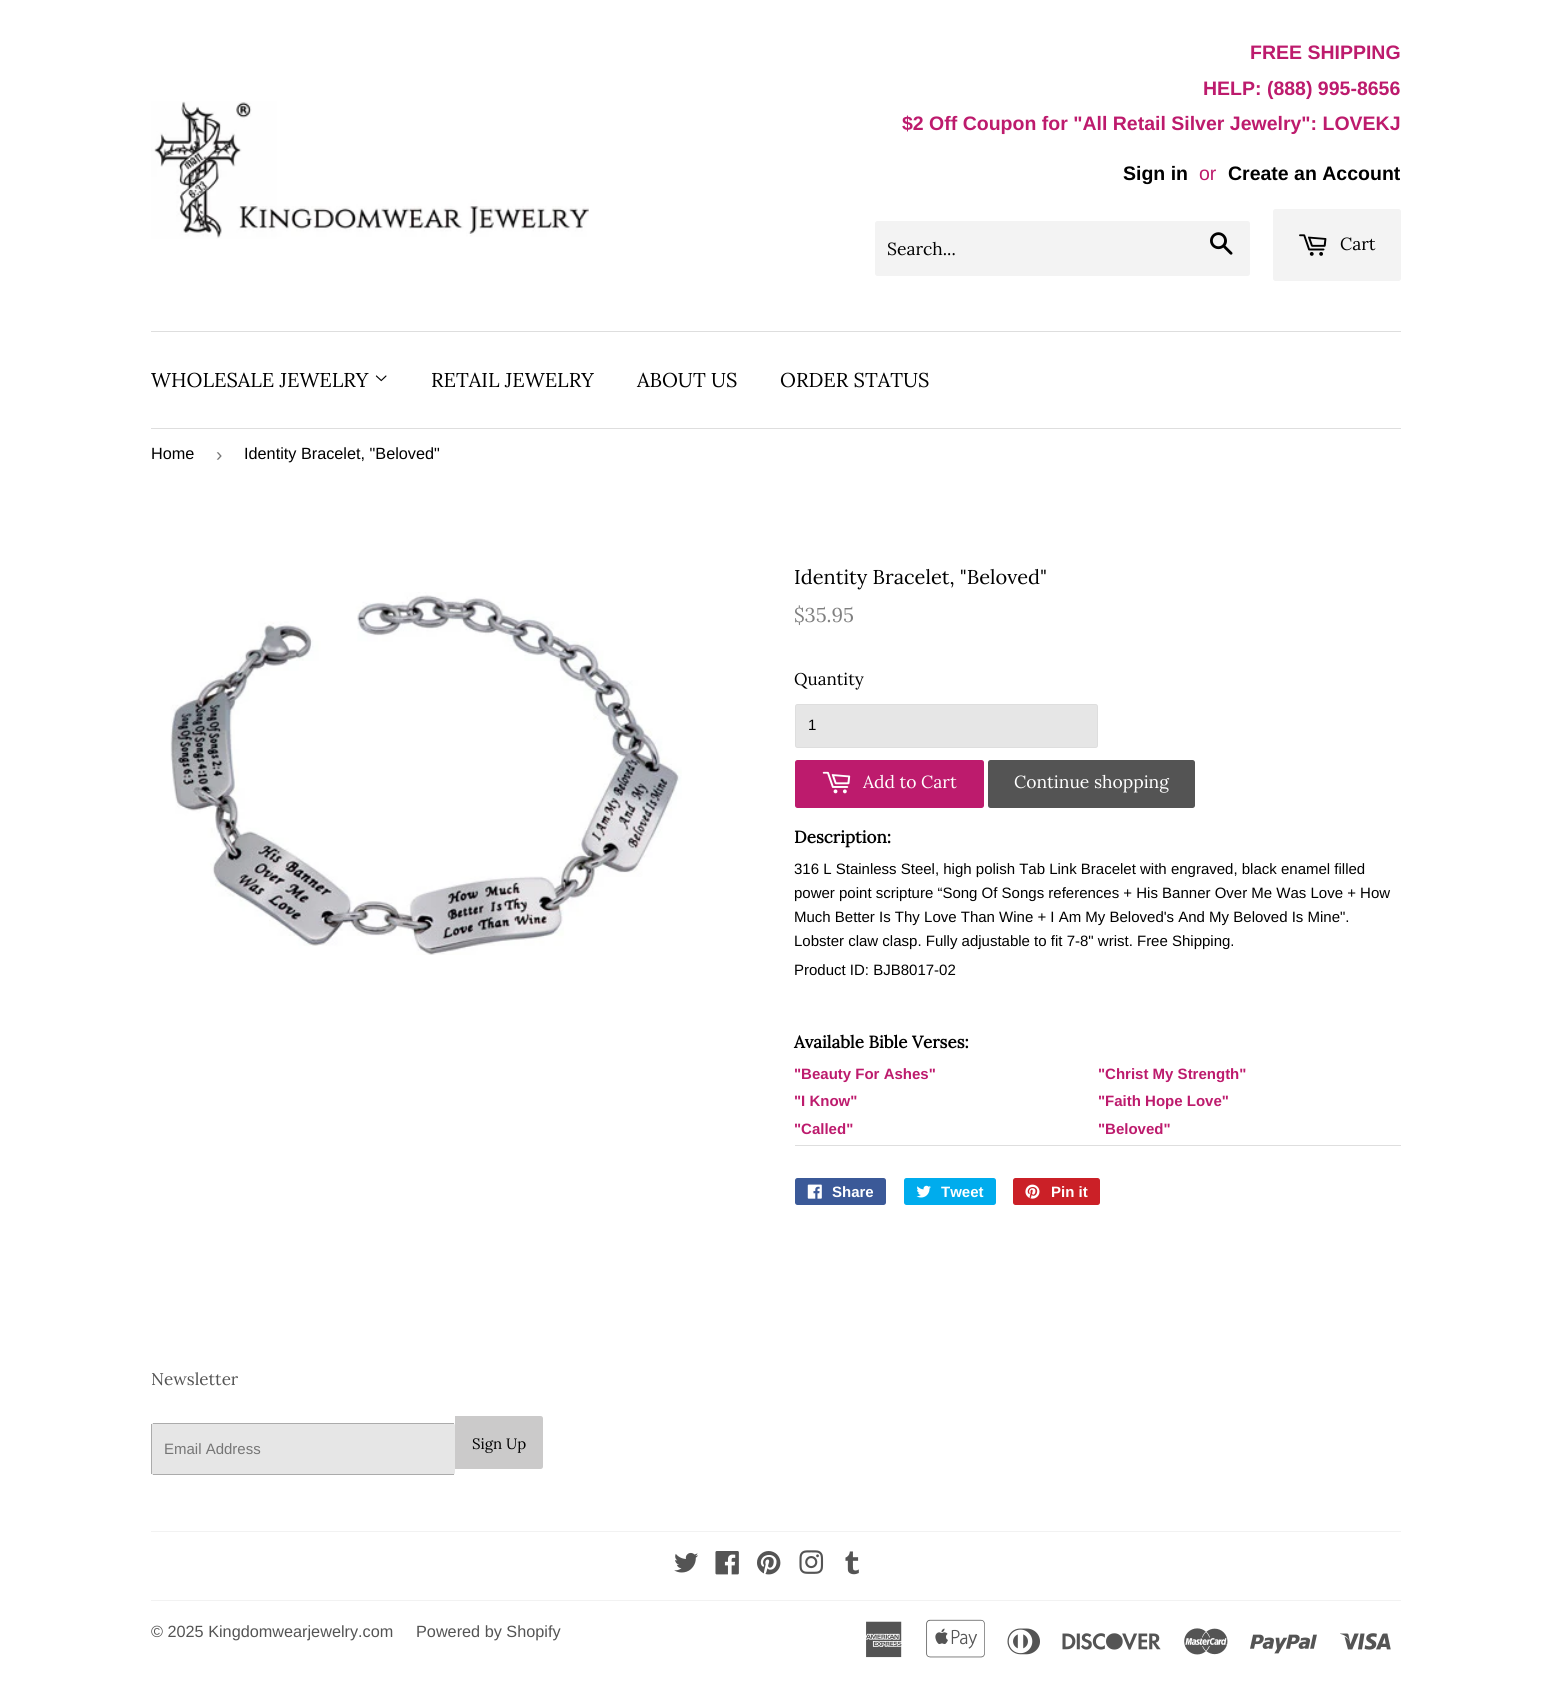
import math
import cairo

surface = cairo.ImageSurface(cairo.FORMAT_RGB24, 1551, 1703)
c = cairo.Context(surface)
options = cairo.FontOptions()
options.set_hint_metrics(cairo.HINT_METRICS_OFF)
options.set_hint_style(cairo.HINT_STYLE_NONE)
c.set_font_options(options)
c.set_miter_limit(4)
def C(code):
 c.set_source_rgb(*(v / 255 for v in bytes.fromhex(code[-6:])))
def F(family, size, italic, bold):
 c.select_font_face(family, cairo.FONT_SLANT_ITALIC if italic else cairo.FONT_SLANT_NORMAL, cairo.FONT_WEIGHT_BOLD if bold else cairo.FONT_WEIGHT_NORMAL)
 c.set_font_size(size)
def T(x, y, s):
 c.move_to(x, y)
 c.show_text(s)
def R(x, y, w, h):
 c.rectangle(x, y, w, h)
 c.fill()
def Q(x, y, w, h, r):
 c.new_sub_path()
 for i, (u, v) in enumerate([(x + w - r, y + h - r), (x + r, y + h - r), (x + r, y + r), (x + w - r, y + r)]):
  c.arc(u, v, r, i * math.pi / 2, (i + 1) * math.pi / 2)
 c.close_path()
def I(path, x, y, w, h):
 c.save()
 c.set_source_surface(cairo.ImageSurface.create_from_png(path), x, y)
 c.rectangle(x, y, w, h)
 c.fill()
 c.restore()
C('ffffff')
c.paint()
I('1.png',151,101,438,138)
F('Liberation Sans',19.5,0,1)
C('bd1b6d')
T(1250,59,'FREE SHIPPING')
T(1203,95,'HELP: (888) 995-8656')
T(902,130,'$2 Off Coupon for "All Retail Silver Jewelry": LOVEKJ')
C('000000')
T(1123,180,'Sign in')
F('Liberation Sans',19.5,0,0)
C('bd1b6d')
T(1199,180,'or')
F('Liberation Sans',19.5,0,1)
C('000000')
T(1228,180,'Create an Account')
C('f3f3f3')
Q(875,221,375,55,2.5)
c.fill()
F('Lora',17.5,0,0)
C('000000')
T(887,255,'Search...')
I('2.png',1210,232,23,23)
C('f3f3f3')
Q(1273,209,128,72,2.5)
c.fill()
I('3.png',1299,234,28,22)
C('000000')
T(1340,250,'Cart')
C('dedede')
R(151,331,1250,1)
F('Lora',20,0,0)
C('000000')
T(151,387,'WHOLESALE JEWELRY')
I('4.png',375,375,12,7)
T(431,387,'RETAIL JEWELRY')
T(637,387,'ABOUT US')
T(780,387,'ORDER STATUS')
C('dedede')
R(151,428,1250,1)
F('Liberation Sans',16.25,0,0)
C('000000')
T(151,459,'Home')
F('Liberation Sans',19,0,0)
C('767676')
T(216,461,'›')
F('Liberation Sans',16.25,0,0)
C('000000')
T(244,459,'Identity Bracelet, "Beloved"')
I('5.png',170,592,512,363)
F('Lora',20,0,0)
T(794,584,'Identity Bracelet, "Beloved"')
C('808080')
T(794,622,'$35.95')
F('Lora',17,0,0)
C('000000')
T(794,685,'Quantity')
C('e6e6e6')
Q(795.5,704.5,302,43,2)
c.fill_preserve()
C('dedede')
c.set_line_width(1)
c.stroke()
F('Liberation Sans',15,0,0)
C('000000')
T(808,730,'1')
C('bd1b6d')
Q(795,760,189,48,2.5)
c.fill()
I('6.png',822,771,29,23)
F('Lora',17.5,0,0)
C('ffffff')
T(863,788,'Add to Cart')
C('545454')
Q(988,760,207,48,2.5)
c.fill()
C('ffffff')
T(1014,788,'Continue shopping')
F('Lora',17,0,1)
C('000000')
T(794,843,'Description:')
F('Liberation Sans',15,0,0)
T(794,874,'316 L Stainless Steel, high polish Tab Link Bracelet with engraved, black enamel filled')
T(794,898,'power point scripture “Song Of Songs references + His Banner Over Me Was Love + How')
T(794,922,'Much Better Is Thy Love Than Wine + I Am My Beloved\'s And My Beloved Is Mine".')
T(794,946,'Lobster claw clasp. Fully adjustable to fit 7-8" wrist. Free Shipping.')
T(794,975,'Product ID: BJB8017-02')
F('Lora',17,0,1)
T(794,1048,'Available Bible Verses:')
F('Liberation Sans',15,0,1)
C('bd1b6d')
T(794,1079,'"Beauty For Ashes"')
T(1098,1079,'"Christ My Strength"')
T(794,1106,'"I Know"')
T(1098,1106,'"Faith Hope Love"')
T(794,1134,'"Called"')
T(1098,1134,'"Beloved"')
C('dedede')
R(795,1145,606,1)
C('3b5998')
Q(795,1178,91,27,2.5)
c.fill()
I('7.png',807,1184,15,15)
C('ffffff')
T(832,1197,'Share')
C('00aced')
Q(904,1178,92,27,2.5)
c.fill()
I('8.png',916,1185,15,13)
C('ffffff')
T(941,1197,'Tweet')
C('cb2027')
Q(1013,1178,87,27,2.5)
c.fill()
I('9.png',1025,1184,15,15)
C('ffffff')
T(1051,1197,'Pin it')
F('Lora',17,0,0)
C('545454')
T(151,1385,'Newsletter')
C('e6e6e6')
Q(151,1423,304,52,2.5)
c.fill()
C('ababab')
R(153,1423,301,1)
R(153,1474,301,1)
R(151,1424,1,50)
F('Liberation Sans',15,0,0)
C('767676')
T(164,1454,'Email Address')
C('cbcaca')
c.new_path()
c.move_to(455,1416)
c.line_to(540.5,1416)
c.curve_to(542,1416,543,1417,543,1418.5)
c.line_to(543,1466.5)
c.curve_to(543,1468,542,1469,540.5,1469)
c.line_to(455,1469)
c.close_path()
c.fill()
F('Lora',15,0,0)
C('000000')
T(472,1449,'Sign Up')
C('f2f2f2')
R(151,1531,1250,1)
I('10.png',674,1552,24,21)
I('11.png',715,1551,24,24)
I('12.png',757,1551,24,24)
I('13.png',799,1550,25,24)
I('14.png',845,1551,14,24)
R(151,1600,1250,1)
F('Liberation Sans',16.25,0,0)
C('545454')
T(151,1637,'© 2025 Kingdomwearjewelry.com')
T(416,1637,'Powered by Shopify')
I('15.png',866,1621,36,37)
I('16.png',926,1619,59,39)
I('17.png',1007,1628,33,27)
I('18.png',1062,1633,99,17)
I('19.png',1184,1628,44,27)
I('20.png',1250,1634,67,20)
I('21.png',1340,1633,51,17)
surface.write_to_png('o.png')
